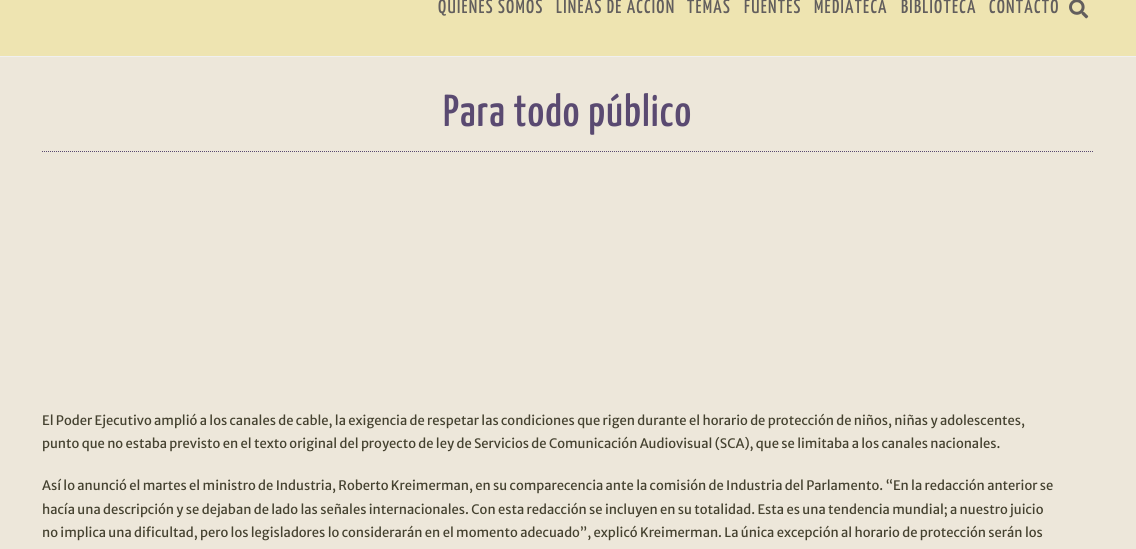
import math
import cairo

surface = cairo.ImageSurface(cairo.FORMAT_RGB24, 1136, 549)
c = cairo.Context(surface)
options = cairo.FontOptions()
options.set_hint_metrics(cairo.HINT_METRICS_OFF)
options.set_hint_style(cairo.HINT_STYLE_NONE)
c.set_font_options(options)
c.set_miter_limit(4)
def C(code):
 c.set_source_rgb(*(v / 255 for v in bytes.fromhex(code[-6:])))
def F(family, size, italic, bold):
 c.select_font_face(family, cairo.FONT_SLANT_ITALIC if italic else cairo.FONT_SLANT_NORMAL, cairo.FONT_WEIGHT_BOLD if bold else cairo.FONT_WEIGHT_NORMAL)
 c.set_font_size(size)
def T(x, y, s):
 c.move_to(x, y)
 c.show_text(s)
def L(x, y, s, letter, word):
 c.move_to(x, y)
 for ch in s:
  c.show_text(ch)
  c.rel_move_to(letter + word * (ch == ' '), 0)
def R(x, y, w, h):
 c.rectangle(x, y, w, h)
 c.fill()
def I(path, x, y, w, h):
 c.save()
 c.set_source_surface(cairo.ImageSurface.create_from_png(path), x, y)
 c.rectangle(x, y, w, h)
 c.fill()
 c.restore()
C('ede7da')
c.paint()
C('eee4b1')
R(0,0,1136,56)
C('f0f0f0')
R(0,56,1136,1)
F('Yanone Kaffeesatz Medium',19.25,0,0)
C('625e5d')
L(438,13,'QUIENES SOMOS',1.25,0)
L(556,13,'LINEAS DE ACCIÓN',1.25,0)
L(687,13,'TEMAS',1.25,0)
L(744,13,'FUENTES',1.25,0)
L(814,13,'MEDIATECA',1.25,0)
L(901,13,'BIBLIOTECA',1.25,0)
L(989,13,'CONTACTO',1.25,0)
I('1.png',1069,0,20,19)
c.new_path()
c.move_to(42,151.5)
c.line_to(1094,151.5)
C('5a4a71')
c.set_line_width(1)
c.set_dash([1,1])
c.stroke()
F('Yanone Kaffeesatz Medium',44.75,0,0)
L(443,126,'Para todo público',1,0)
F('Merriweather Sans',13,0,0)
C('454230')
T(42,425,'El Poder Ejecutivo amplió a los canales de cable, la exigencia de respetar las condiciones que rigen durante el horario de protección de niños, niñas y adolescentes,')
T(42,448,'punto que no estaba previsto en el texto original del proyecto de ley de Servicios de Comunicación Audiovisual (SCA), que se limitaba a los canales nacionales.')
T(42,490,'Así lo anunció el martes el ministro de Industria, Roberto Kreimerman, en su comparecencia ante la comisión de Industria del Parlamento. “En la redacción anterior se')
T(42,514,'hacía una descripción y se dejaban de lado las señales internacionales. Con esta redacción se incluyen en su totalidad. Esta es una tendencia mundial; a nuestro juicio')
T(42,537,'no implica una dificultad, pero los legisladores lo considerarán en el momento adecuado”, explicó Kreimerman. La única excepción al horario de protección serán los')
surface.write_to_png('o.png')
